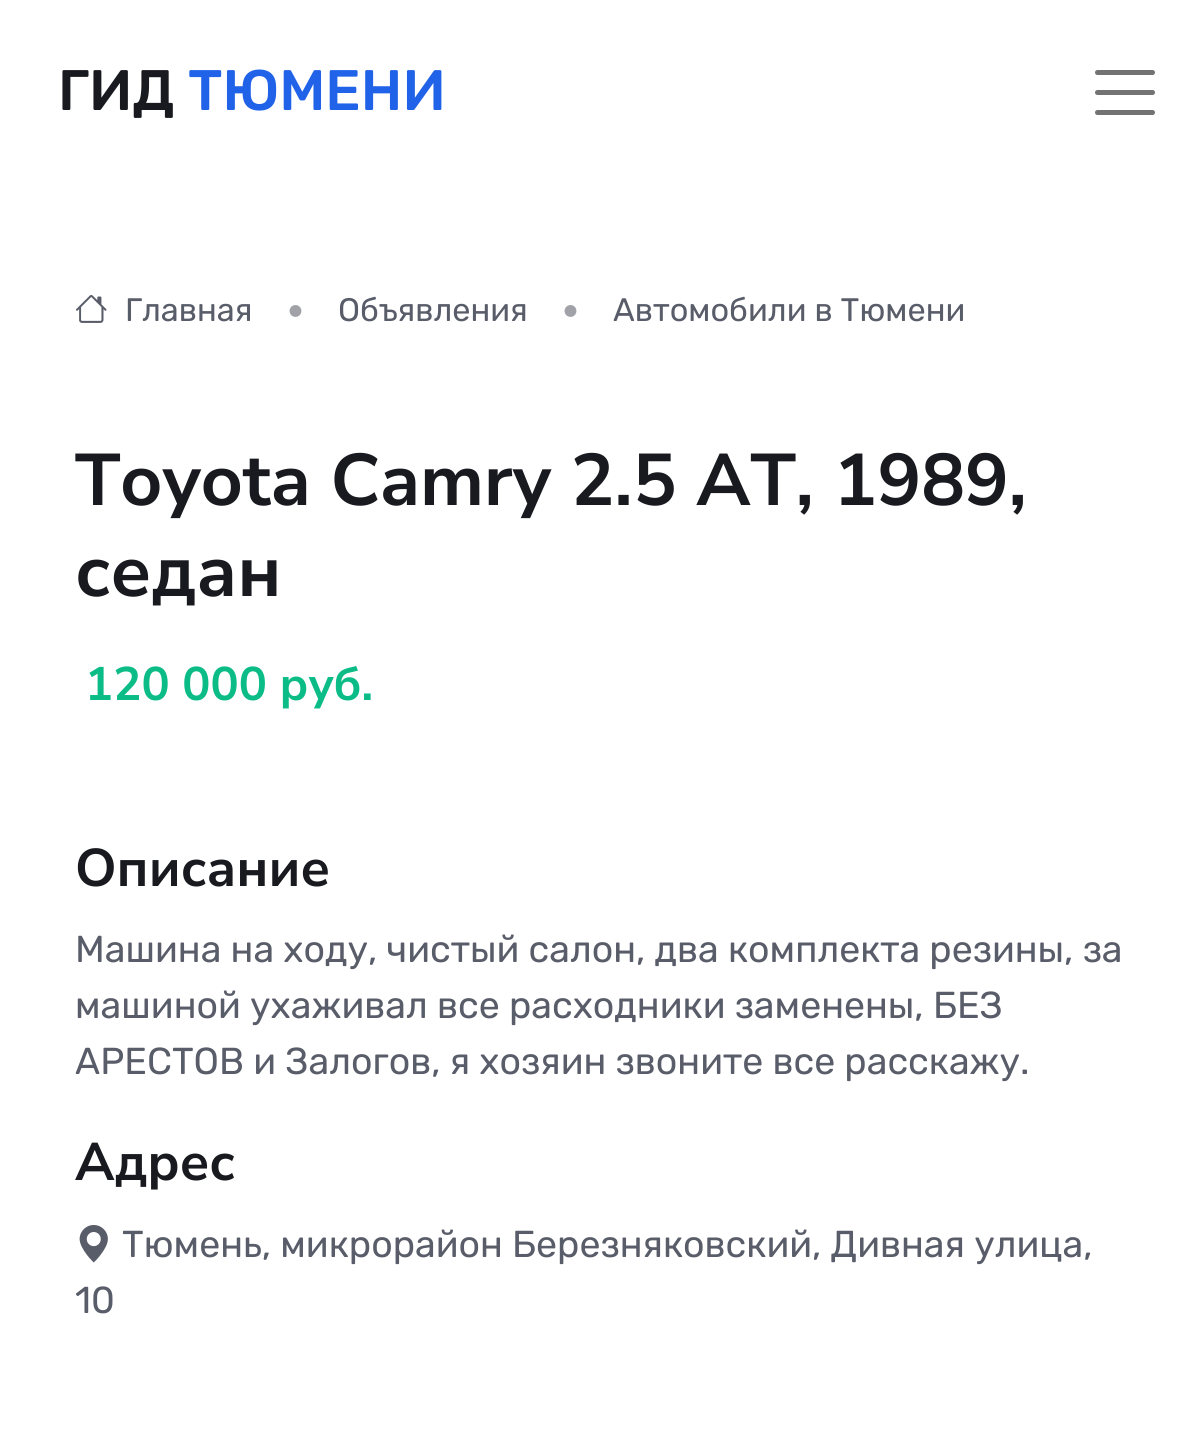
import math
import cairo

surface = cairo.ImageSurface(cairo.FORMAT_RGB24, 1198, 1456)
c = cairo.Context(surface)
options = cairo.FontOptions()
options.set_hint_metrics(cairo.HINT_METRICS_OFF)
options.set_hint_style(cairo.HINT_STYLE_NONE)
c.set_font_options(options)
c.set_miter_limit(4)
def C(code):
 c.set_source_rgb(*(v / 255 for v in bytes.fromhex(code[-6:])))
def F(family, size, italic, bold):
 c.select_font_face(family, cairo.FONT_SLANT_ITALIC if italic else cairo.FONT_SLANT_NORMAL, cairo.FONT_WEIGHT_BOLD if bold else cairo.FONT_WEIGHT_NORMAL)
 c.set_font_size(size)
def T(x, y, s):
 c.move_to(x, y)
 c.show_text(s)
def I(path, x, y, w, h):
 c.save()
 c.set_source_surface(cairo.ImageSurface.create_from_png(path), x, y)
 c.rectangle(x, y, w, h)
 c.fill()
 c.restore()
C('ffffff')
c.paint()
F('Rubik Medium',57,0,0)
C('191a1f')
T(58,110,'ГИД')
C('2163e8')
T(188,110,'ТЮМЕНИ')
c.new_path()
c.move_to(1097.5,72.5)
c.line_to(1152.5,72.5)
c.move_to(1097.5,92.5)
c.line_to(1152.5,92.5)
c.move_to(1097.5,112.5)
c.line_to(1152.5,112.5)
C('737373')
c.set_line_width(5)
c.set_line_cap(cairo.LINE_CAP_ROUND)
c.stroke()
I('1.png',76,295,31,28)
F('Rubik',32.5,0,0)
C('595d69')
T(125,321,'Главная')
F('Rubik',55,0,0)
C('a1a1a8')
T(285,328,'•')
F('Rubik',32.5,0,0)
C('595d69')
T(338,321,'Объявления')
F('Rubik',55,0,0)
C('a1a1a8')
T(560,328,'•')
F('Rubik',32.5,0,0)
C('595d69')
T(613,321,'Автомобили в Тюмени')
F('Nunito Sans',73,0,1)
C('191a1f')
T(75,505,'Toyota Camry 2.5 AT, 1989,')
T(75,596,'седан')
F('Nunito Sans',47,0,1)
C('0cbc87')
T(85,700,'120 000 руб.')
F('Nunito Sans',53,0,1)
C('191a1f')
T(75,886,'Описание')
F('Rubik',37.5,0,0)
C('595d69')
T(75,962,'Машина на ходу, чистый салон, два комплекта резины, за')
T(75,1018,'машиной ухаживал все расходники заменены, БЕЗ')
T(75,1074,'АРЕСТОВ и Залогов, я хозяин звоните все расскажу.')
F('Nunito Sans',53,0,1)
C('191a1f')
T(75,1180,'Адрес')
I('2.png',79,1225,29,38)
F('Rubik',37.5,0,0)
C('595d69')
T(122,1257,'Тюмень, микрорайон Березняковский, Дивная улица,')
T(75,1313,'10')
surface.write_to_png('o.png')
